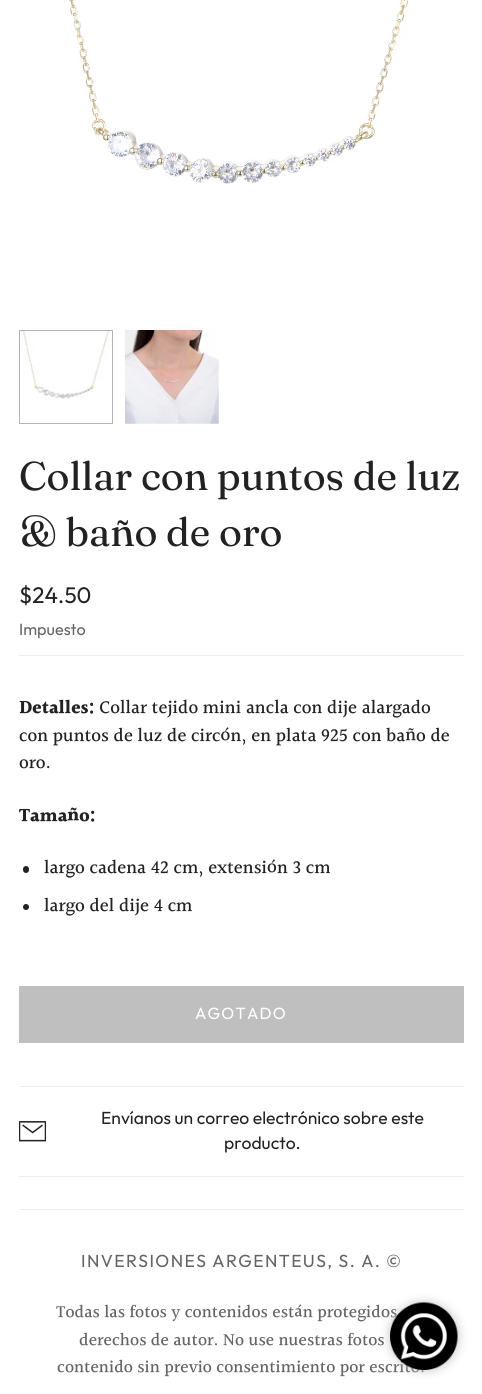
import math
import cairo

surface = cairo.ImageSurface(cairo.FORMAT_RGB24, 482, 1394)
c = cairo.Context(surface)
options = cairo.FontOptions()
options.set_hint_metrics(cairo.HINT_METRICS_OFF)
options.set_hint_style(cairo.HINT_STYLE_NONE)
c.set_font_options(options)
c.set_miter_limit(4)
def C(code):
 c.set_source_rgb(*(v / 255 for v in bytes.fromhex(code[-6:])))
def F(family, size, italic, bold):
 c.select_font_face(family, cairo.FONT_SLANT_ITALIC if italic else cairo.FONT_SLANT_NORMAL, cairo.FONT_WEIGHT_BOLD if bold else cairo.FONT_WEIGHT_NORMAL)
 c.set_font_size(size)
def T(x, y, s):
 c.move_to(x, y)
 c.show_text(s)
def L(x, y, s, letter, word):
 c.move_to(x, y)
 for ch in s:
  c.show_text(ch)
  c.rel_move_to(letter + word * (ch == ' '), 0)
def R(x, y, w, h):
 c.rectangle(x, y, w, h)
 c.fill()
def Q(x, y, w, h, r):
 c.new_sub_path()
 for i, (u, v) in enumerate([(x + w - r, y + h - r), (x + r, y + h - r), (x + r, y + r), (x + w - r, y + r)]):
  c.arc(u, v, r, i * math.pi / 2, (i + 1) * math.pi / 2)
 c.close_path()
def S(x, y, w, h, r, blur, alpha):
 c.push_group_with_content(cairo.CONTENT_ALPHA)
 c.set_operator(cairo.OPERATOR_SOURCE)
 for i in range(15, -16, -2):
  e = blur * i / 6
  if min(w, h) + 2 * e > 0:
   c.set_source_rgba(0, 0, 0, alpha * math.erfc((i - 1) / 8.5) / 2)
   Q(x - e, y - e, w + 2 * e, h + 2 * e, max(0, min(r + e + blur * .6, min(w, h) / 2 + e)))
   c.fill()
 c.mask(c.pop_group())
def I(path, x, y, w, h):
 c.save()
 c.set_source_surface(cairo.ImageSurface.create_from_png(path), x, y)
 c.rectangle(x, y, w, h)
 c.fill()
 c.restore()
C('ffffff')
c.paint()
I('1.png',68,0,342,185)
I('2.png',22,330,88,69)
c.rectangle(19.5,330.5,93,93)
c.set_source_rgba(0,0,0,0.3)
c.set_line_width(1)
c.stroke()
I('3.png',125,330,94,94)
F('Fraunces',40,0,0)
C('222222')
T(19,490,'Collar con puntos de luz')
T(19,546,'& baño de oro')
C('eeeeee')
R(19,655,445,1)
F('Outfit',22.5,0,0)
C('222222')
T(19,603,'$24.50')
F('Outfit',16.25,0,0)
C('646464')
T(19,635,'Impuesto')
F('Halant',18.75,0,1)
C('222222')
T(19,714,'Detalles:')
F('Halant Medium',18.75,0,0)
T(99,714,'Collar tejido mini ancla con dije alargado')
T(19,742,'con puntos de luz de circón, en plata 925 con baño de')
T(19,769,'oro.')
F('Halant',18.75,0,1)
T(19,822,'Tamaño:')
Q(23,866,6,7,3)
c.fill()
F('Halant Medium',18.75,0,0)
T(44,874,'largo cadena 42 cm, extensión 3 cm')
c.new_path()
c.arc(26,907,3,0,2 * math.pi)
c.fill()
T(44,912,'largo del dije 4 cm')
C('eeeeee')
R(19,1086,445,1)
C('bfbfbf')
R(19,986,445,57)
F('Outfit',16.25,0,0)
C('ffffff')
L(195,1019,'AGOTADO',1.25,0)
C('eeeeee')
R(19,1176,445,1)
I('4.png',19,1121,27,21)
F('Outfit',17.5,0,0)
C('222222')
T(101,1124,'Envíanos un correo electrónico sobre este')
T(224,1149,'producto.')
C('eeeeee')
R(19,1209,445,1)
C('646464')
L(81,1267,'INVERSIONES ARGENTEUS, S. A. ©',1.4,0)
F('Halant Medium',17.5,0,0)
T(56,1318,'Todas las fotos y contenidos están protegidos')
T(79,1346,'derechos de autor. No use nuestras fotos')
T(57,1373,'contenido sin previo consentimiento por escrito.')
C('c2c2c2')
S(390,1303,68,67,33.5,5,1)
I('5.png',390,1302,68,68)
surface.write_to_png('o.png')
